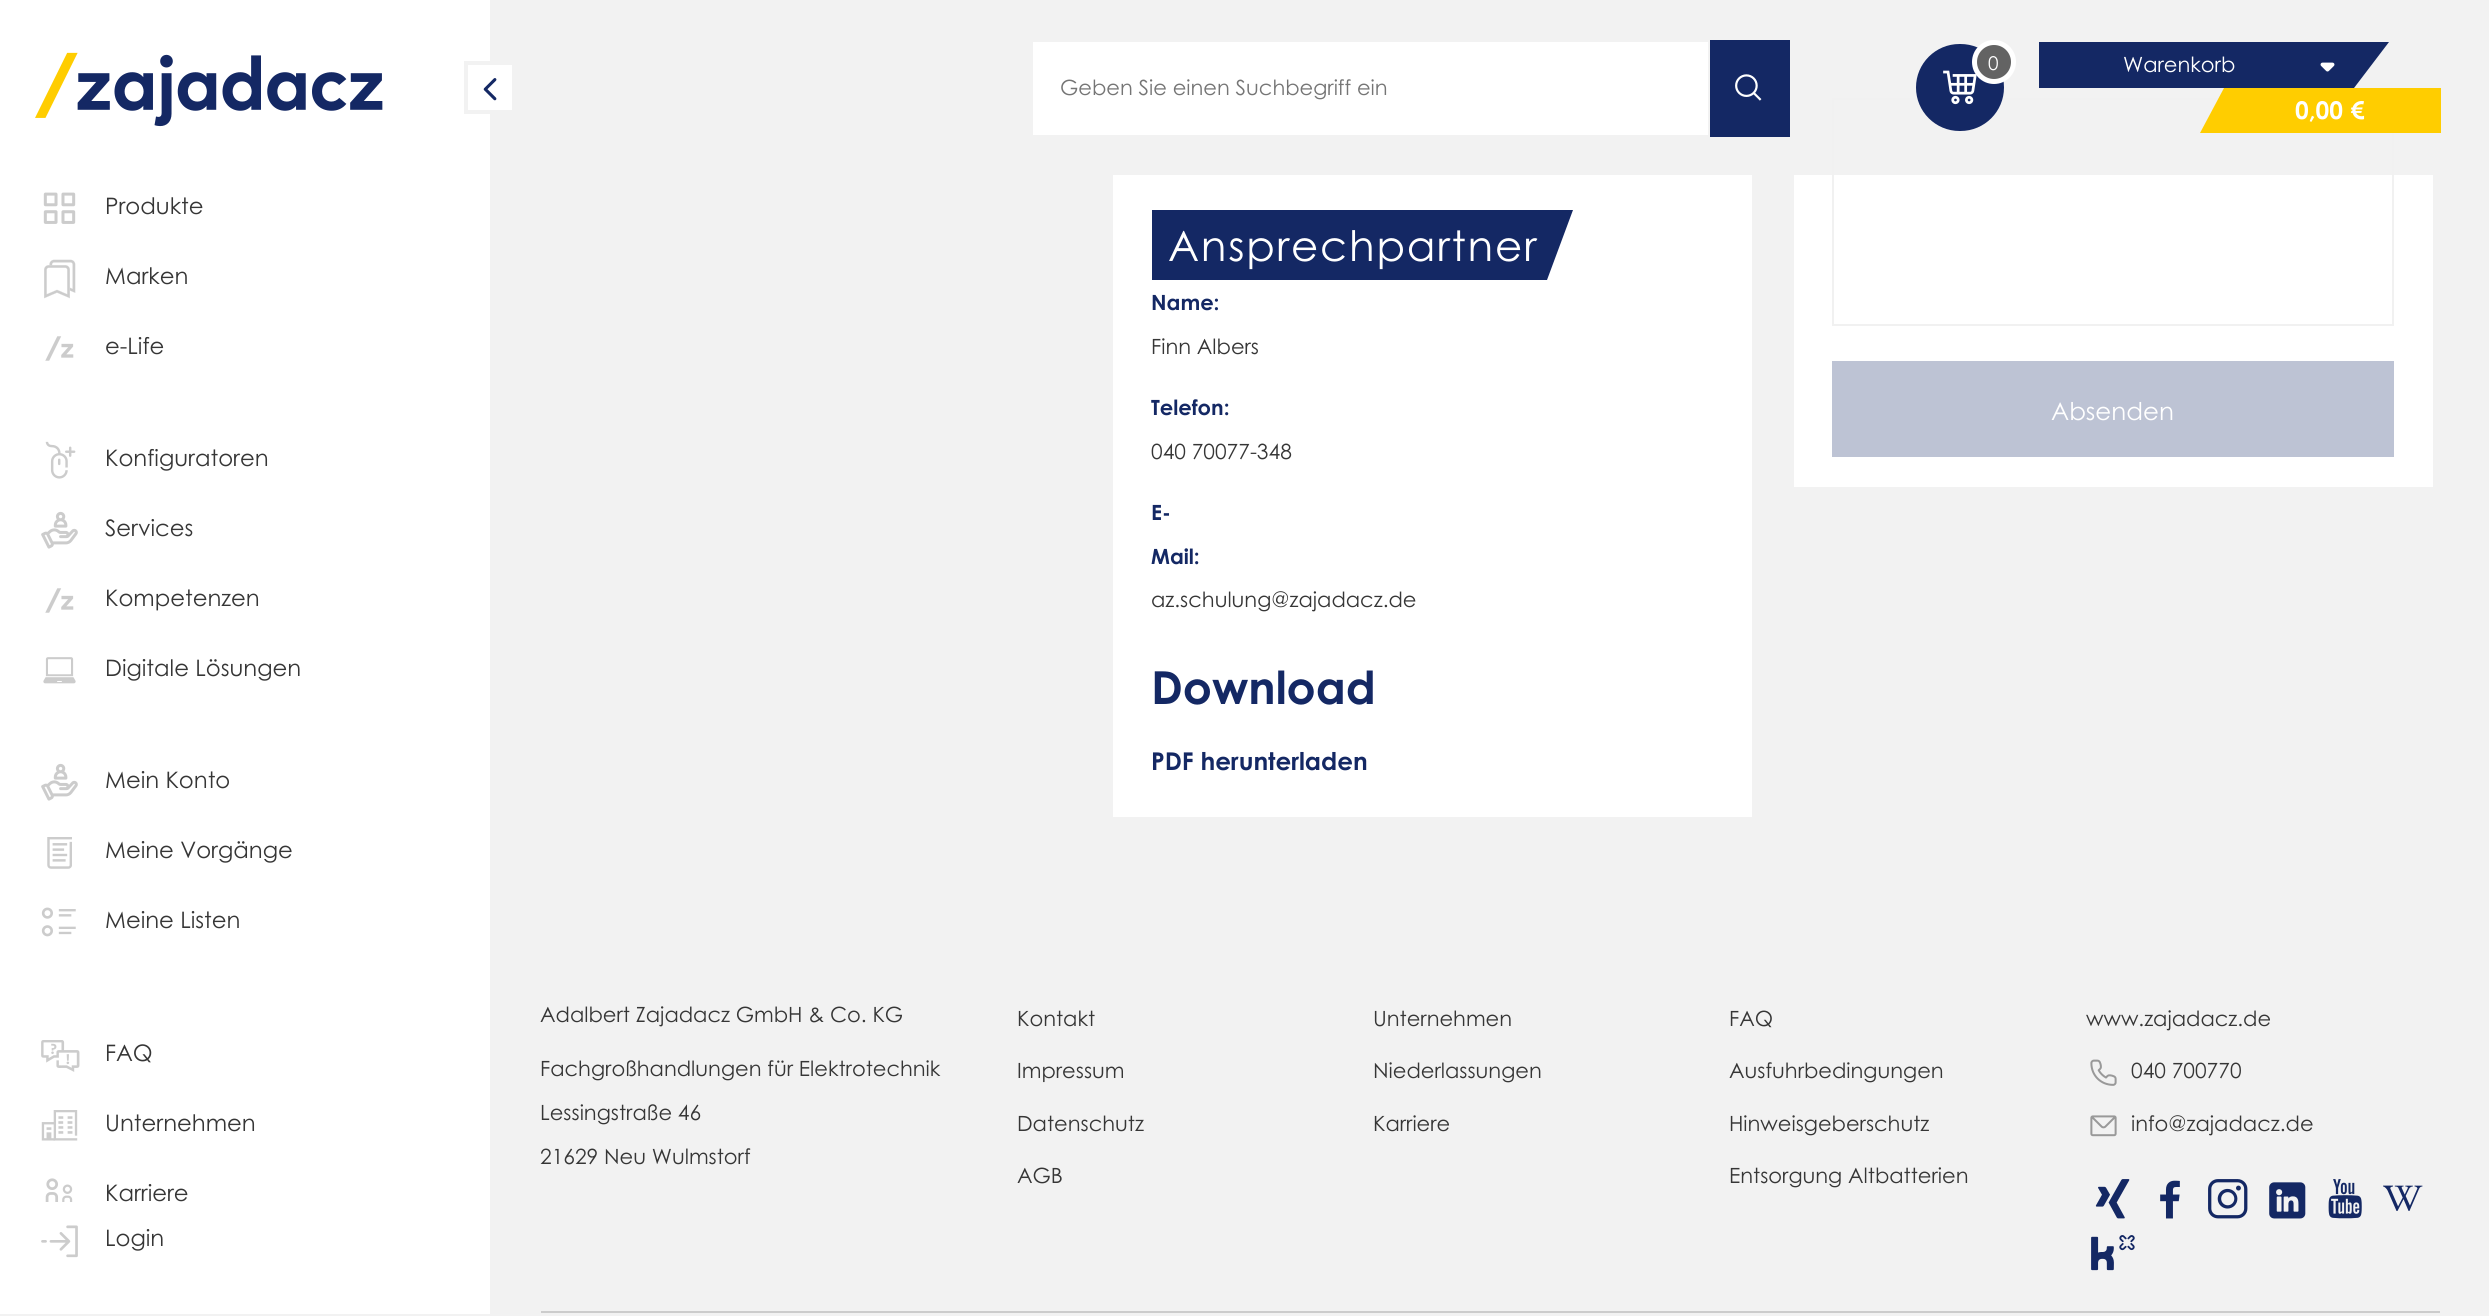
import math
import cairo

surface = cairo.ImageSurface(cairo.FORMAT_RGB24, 2489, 1316)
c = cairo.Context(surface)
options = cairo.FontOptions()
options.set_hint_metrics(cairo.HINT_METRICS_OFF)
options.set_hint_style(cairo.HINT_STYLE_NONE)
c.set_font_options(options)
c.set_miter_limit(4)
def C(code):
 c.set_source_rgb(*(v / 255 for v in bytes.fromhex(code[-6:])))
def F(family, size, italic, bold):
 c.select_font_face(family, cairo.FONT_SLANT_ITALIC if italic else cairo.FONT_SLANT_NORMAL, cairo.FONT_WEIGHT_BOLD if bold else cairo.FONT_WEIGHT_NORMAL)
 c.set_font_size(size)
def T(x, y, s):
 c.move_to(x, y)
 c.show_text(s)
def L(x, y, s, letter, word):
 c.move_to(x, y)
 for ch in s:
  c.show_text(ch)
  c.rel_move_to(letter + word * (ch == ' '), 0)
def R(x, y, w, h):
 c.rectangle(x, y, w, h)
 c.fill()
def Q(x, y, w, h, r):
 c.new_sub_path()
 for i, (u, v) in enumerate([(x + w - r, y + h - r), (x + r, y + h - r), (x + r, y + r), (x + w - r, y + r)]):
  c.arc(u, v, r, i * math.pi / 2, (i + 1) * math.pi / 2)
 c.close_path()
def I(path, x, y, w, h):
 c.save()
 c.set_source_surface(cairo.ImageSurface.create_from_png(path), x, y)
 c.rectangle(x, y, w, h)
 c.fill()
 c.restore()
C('f2f2f2')
c.paint()
C('ffffff')
R(1033,42,675,93)
F('Century Gothic',21,0,0)
C('757575')
T(1060,95,'Geben Sie einen Suchbegriff ein')
C('142864')
R(1710,40,80,97)
I('1.png',1735,74,27,27)
C('ffffff')
R(1794,175,639,312)
c.rectangle(1833,99,560,226)
C('f1f1f1')
c.stroke()
C('142864')
Q(1916,44,88,87,43.5)
c.fill()
I('2.png',1943,70,34,35)
C('636363')
c.arc(1994,62,19.5,0,2 * math.pi)
c.fill_preserve()
C('ffffff')
c.set_line_width(5)
c.stroke()
F('Century Gothic',19,0,0)
T(1988,70,'0')
C('142864')
c.new_path()
c.move_to(2039,42)
c.line_to(2039,88)
c.line_to(2354,88)
c.line_to(2389,42)
c.close_path()
c.fill()
F('Century Gothic',21,0,0)
C('ffffff')
T(2123,72,'Warenkorb')
I('3.png',2320,62,15,10)
C('ffcd00')
c.new_path()
c.move_to(2200,133)
c.line_to(2224,88)
c.line_to(2441,88)
c.line_to(2441,133)
c.close_path()
c.fill()
F('Century Gothic',24.5,0,1)
C('ffffff')
T(2295,119,'0,00 €')
R(0,0,490,1314)
I('4.png',35,52,348,75)
R(490,65,22,45)
c.rectangle(466,63,48,49)
C('f2f2f2')
c.set_line_width(4)
c.stroke()
I('5.png',483,78,14,23)
I('6.png',43,192,33,32)
F('Century Gothic',22.75,0,0)
C('363636')
T(105,214,'Produkte')
I('7.png',44,259,32,40)
T(105,284,'Marken')
I('8.png',45,336,29,25)
T(105,354,'e-Life')
I('9.png',45,441,31,38)
T(105,466,'Konfiguratoren')
I('10.png',41,511,37,38)
T(105,536,'Services')
I('8.png',45,588,29,25)
T(105,606,'Kompetenzen')
I('11.png',43,657,33,27)
T(105,676,'Digitale Lösungen')
I('10.png',41,763,37,38)
T(105,788,'Mein Konto')
I('12.png',47,837,25,32)
T(105,858,'Meine Vorgänge')
I('13.png',41,907,35,30)
T(105,928,'Meine Listen')
I('14.png',41,1040,39,32)
T(105,1061,'FAQ')
I('15.png',41,1110,37,31)
T(105,1131,'Unternehmen')
I('16.png',45,1178,28,24)
T(105,1201,'Karriere')
I('17.png',41,1225,37,33)
T(105,1246,'Login')
C('ffffff')
R(1113,175,639,642)
C('142864')
c.new_path()
c.move_to(1152,210)
c.line_to(1573,210)
c.line_to(1547,280)
c.line_to(1152,280)
c.close_path()
c.fill()
F('Century Gothic',42,0,0)
C('ffffff')
L(1168,261,'Ansprechpartner',1.75,0)
F('Century Gothic',21,0,1)
C('142864')
T(1151,310,'Name:')
F('Century Gothic',21,0,0)
C('363636')
T(1151,354,'Finn Albers')
F('Century Gothic',21,0,1)
C('142864')
T(1151,415,'Telefon:')
F('Century Gothic',21,0,0)
C('363636')
T(1151,459,'040 70077-348')
F('Century Gothic',21,0,1)
C('142864')
T(1151,520,'E-')
T(1151,564,'Mail:')
F('Century Gothic',21,0,0)
C('363636')
T(1151,607,'az.schulung@zajadacz.de')
F('Century Gothic',45.5,0,1)
C('142864')
T(1151,704,'Download')
F('Century Gothic',24.5,0,1)
T(1151,770,'PDF herunterladen')
C('bdc3d4')
R(1832,361,562,96)
F('Century Gothic',24.5,0,0)
C('ffffff')
T(2051,420,'Absenden')
F('Century Gothic',21,0,0)
C('363636')
T(540,1022,'Adalbert Zajadacz GmbH & Co. KG')
T(540,1076,'Fachgroßhandlungen für Elektrotechnik')
T(540,1120,'Lessingstraße 46')
T(540,1164,'21629 Neu Wulmstorf')
T(1017,1026,'Kontakt')
T(1017,1078,'Impressum')
T(1017,1131,'Datenschutz')
T(1017,1183,'AGB')
T(1373,1026,'Unternehmen')
T(1373,1078,'Niederlassungen')
T(1373,1131,'Karriere')
T(1729,1026,'FAQ')
T(1729,1078,'Ausfuhrbedingungen')
T(1729,1131,'Hinweisgeberschutz')
T(1729,1183,'Entsorgung Altbatterien')
T(2086,1026,'www.zajadacz.de')
I('18.png',2090,1059,27,27)
T(2131,1078,'040 700770')
I('19.png',2090,1115,27,22)
T(2131,1131,'info@zajadacz.de')
I('20.png',2095,1179,35,40)
I('21.png',2160,1180,20,39)
I('22.png',2208,1179,40,40)
I('23.png',2269,1182,37,37)
I('24.png',2328,1179,34,40)
I('25.png',2383,1185,40,26)
I('26.png',2091,1235,44,36)
C('cccccc')
R(541,1311,1899,2)
surface.write_to_png('o.png')
